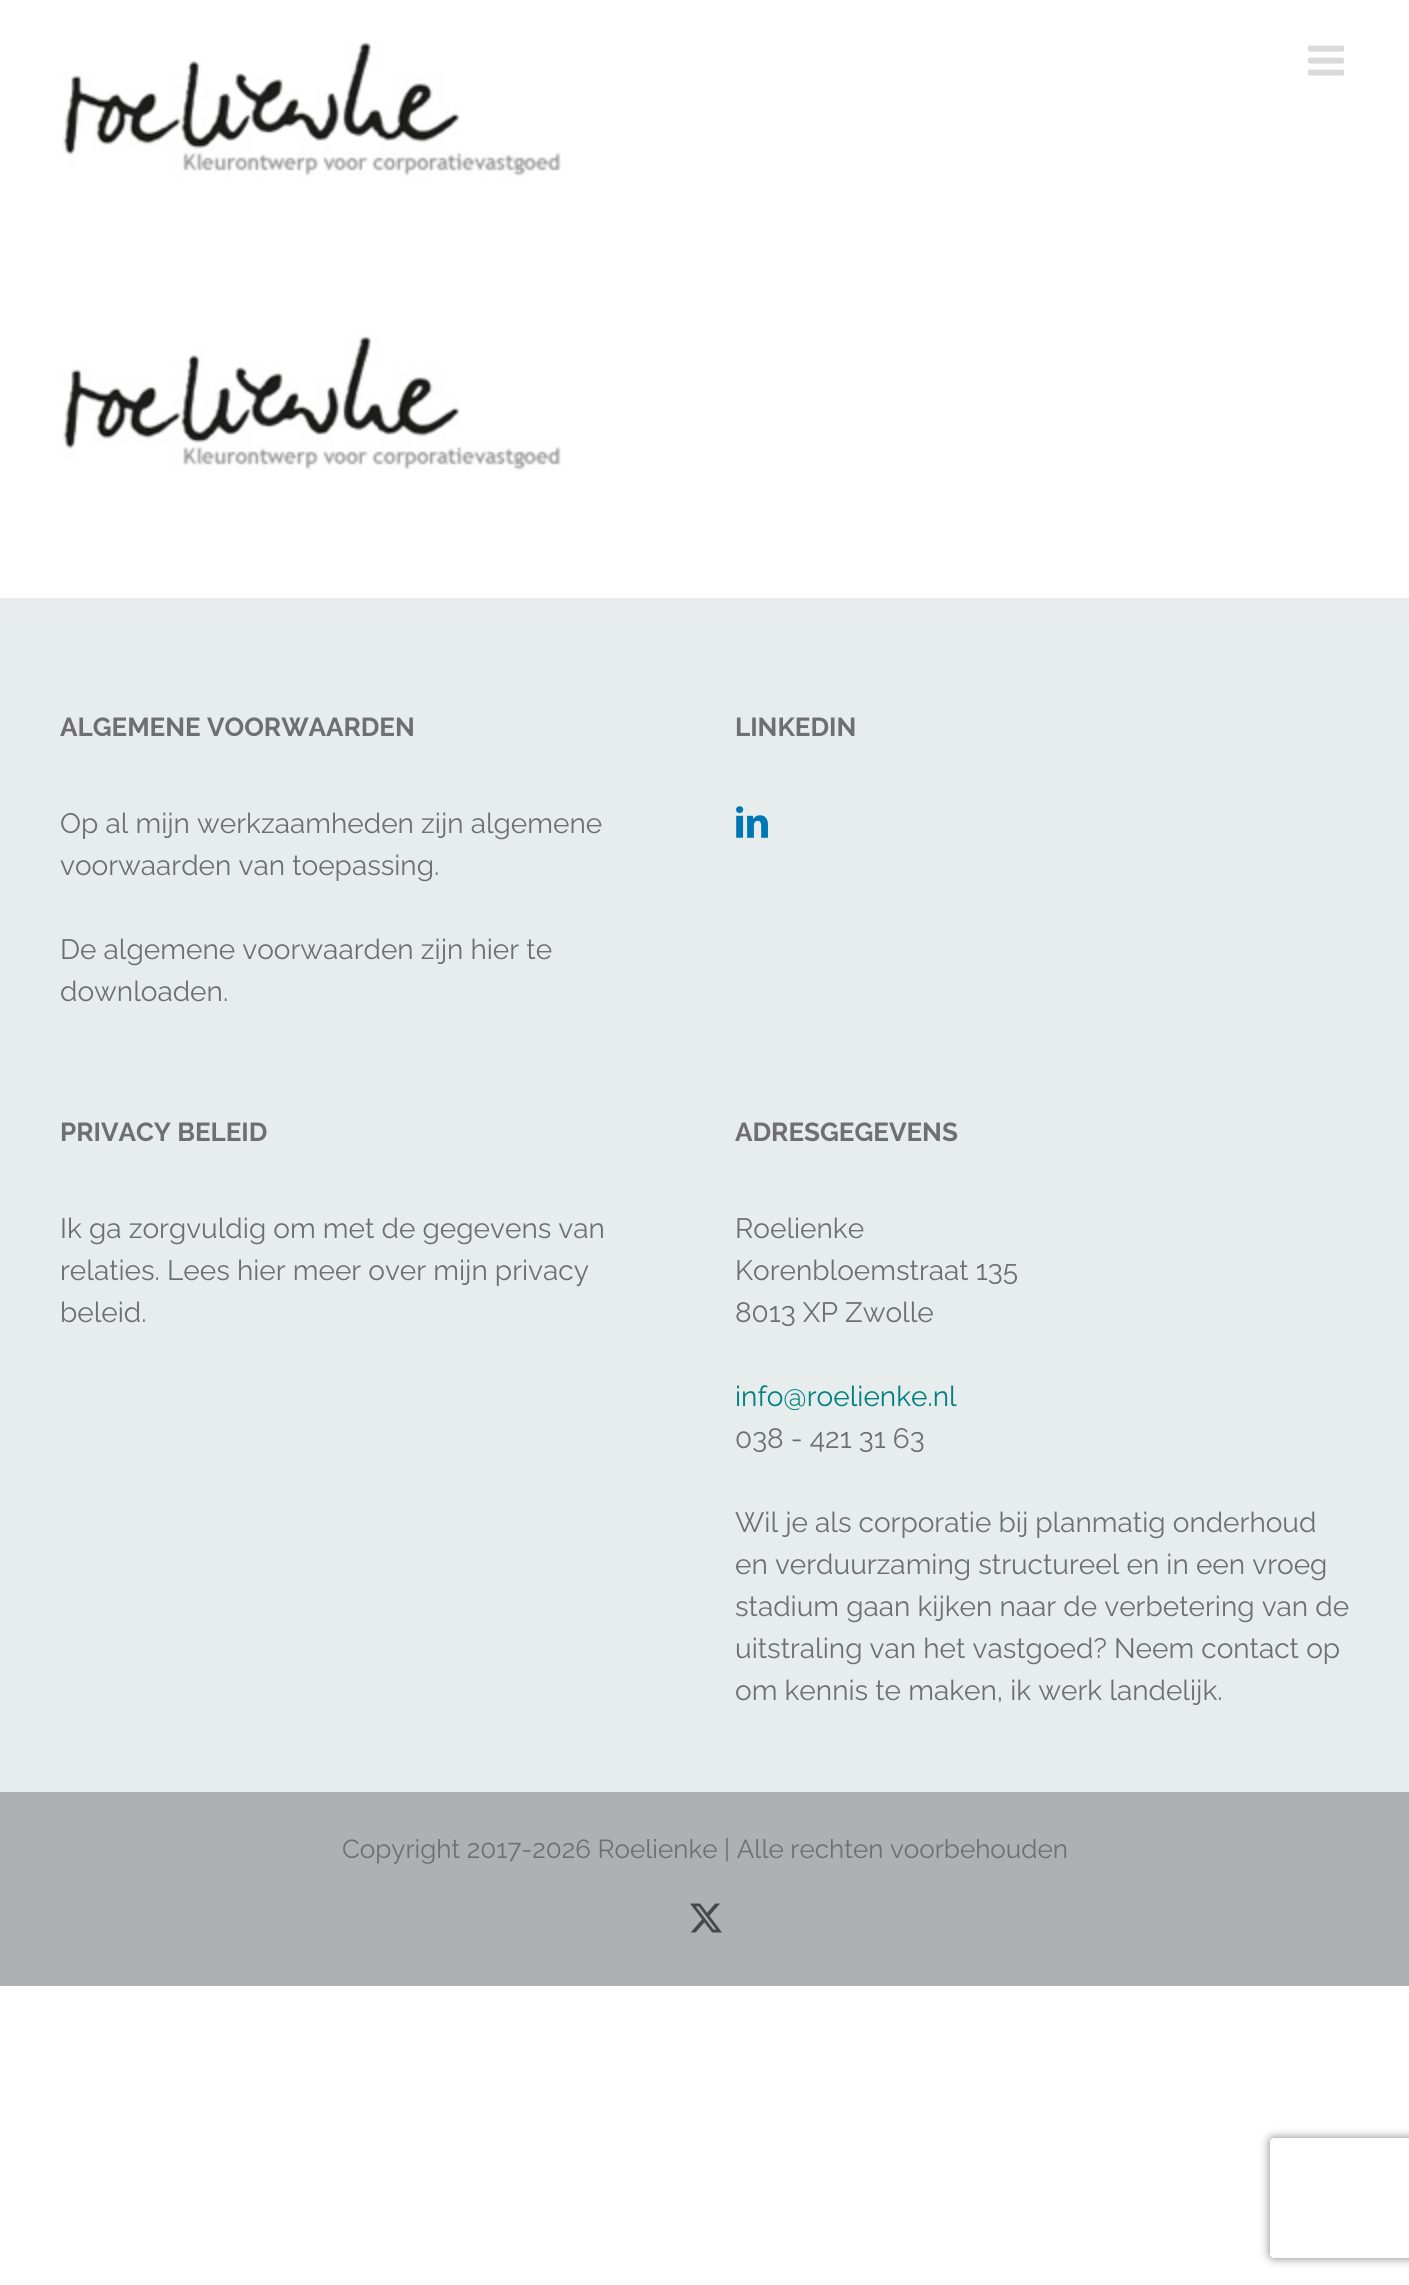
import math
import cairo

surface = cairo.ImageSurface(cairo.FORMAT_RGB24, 1409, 2285)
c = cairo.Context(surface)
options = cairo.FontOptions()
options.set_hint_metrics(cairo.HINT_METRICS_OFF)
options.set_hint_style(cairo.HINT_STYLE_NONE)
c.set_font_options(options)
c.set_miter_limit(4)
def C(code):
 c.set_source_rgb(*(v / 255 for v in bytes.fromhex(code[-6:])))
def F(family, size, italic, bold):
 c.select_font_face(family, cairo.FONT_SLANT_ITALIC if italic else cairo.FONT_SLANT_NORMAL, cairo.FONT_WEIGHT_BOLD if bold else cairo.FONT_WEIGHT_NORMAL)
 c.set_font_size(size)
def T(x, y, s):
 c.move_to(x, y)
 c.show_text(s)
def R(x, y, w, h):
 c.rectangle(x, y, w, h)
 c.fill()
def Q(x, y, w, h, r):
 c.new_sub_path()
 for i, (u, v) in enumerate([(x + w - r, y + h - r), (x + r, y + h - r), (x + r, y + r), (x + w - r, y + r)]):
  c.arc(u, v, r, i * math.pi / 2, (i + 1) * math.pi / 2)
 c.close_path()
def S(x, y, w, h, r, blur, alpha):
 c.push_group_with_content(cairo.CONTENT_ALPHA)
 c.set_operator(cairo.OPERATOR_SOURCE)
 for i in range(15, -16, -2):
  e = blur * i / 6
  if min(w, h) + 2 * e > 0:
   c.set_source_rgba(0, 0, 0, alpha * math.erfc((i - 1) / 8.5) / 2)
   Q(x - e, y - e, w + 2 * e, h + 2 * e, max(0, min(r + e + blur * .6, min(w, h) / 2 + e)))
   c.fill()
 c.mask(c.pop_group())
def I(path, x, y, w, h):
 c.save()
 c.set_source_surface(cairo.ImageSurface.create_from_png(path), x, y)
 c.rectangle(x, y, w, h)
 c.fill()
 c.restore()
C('ffffff')
c.paint()
I('1.png',63,41,498,136)
I('2.png',1308,45,36,31)
I('1.png',63,335,498,136)
C('e7ecec')
R(0,622,1409,1170)
C('e9eaee')
R(0,598,1409,24)
F('Raleway',26,0,1)
C('6f6f6f')
T(60,736,'ALGEMENE VOORWAARDEN')
F('Raleway',28,0,0)
T(60,833,'Op al mijn werkzaamheden zijn algemene')
T(60,875,'voorwaarden van toepassing.')
T(60,959,'De algemene voorwaarden zijn hier te')
T(60,1001,'downloaden.')
F('Raleway',26,0,1)
T(735,736,'LINKEDIN')
I('3.png',736,806,32,32)
T(60,1141,'PRIVACY BELEID')
F('Raleway',28,0,0)
T(60,1238,'Ik ga zorgvuldig om met de gegevens van')
T(60,1280,'relaties. Lees hier meer over mijn privacy')
T(60,1322,'beleid.')
F('Raleway',26,0,1)
T(735,1141,'ADRESGEGEVENS')
F('Raleway',28,0,0)
T(735,1238,'Roelienke')
T(735,1280,'Korenbloemstraat 135')
T(735,1322,'8013 XP Zwolle')
C('008080')
T(735,1406,'info@roelienke.nl')
C('6f6f6f')
T(735,1448,'038 - 421 31 63')
T(735,1532,'Wil je als corporatie bij planmatig onderhoud')
T(735,1574,'en verduurzaming structureel en in een vroeg')
T(735,1616,'stadium gaan kijken naar de verbetering van de')
T(735,1658,'uitstraling van het vastgoed? Neem contact op')
T(735,1700,'om kennis te maken, ik werk landelijk.')
C('adb1b1')
R(0,1792,1409,194)
F('Raleway',26,0,0)
C('6f6f6f')
T(342,1858,'Copyright 2017-2026 Roelienke | Alle rechten voorbehouden')
I('4.png',690,1903,32,30)
c.save()
c.set_fill_rule(cairo.FILL_RULE_EVEN_ODD)
c.new_path()
c.move_to(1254,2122)
c.line_to(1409,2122)
c.line_to(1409,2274)
c.line_to(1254,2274)
c.close_path()
c.move_to(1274,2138)
c.line_to(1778,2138)
c.curve_to(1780,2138,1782,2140,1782,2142)
c.line_to(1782,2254)
c.curve_to(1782,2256,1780,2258,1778,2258)
c.line_to(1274,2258)
c.curve_to(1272,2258,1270,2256,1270,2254)
c.line_to(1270,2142)
c.curve_to(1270,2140,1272,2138,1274,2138)
c.close_path()
c.clip()
C('808080')
S(1270,2138,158,120,4,5,1)
c.restore()
surface.write_to_png('o.png')
